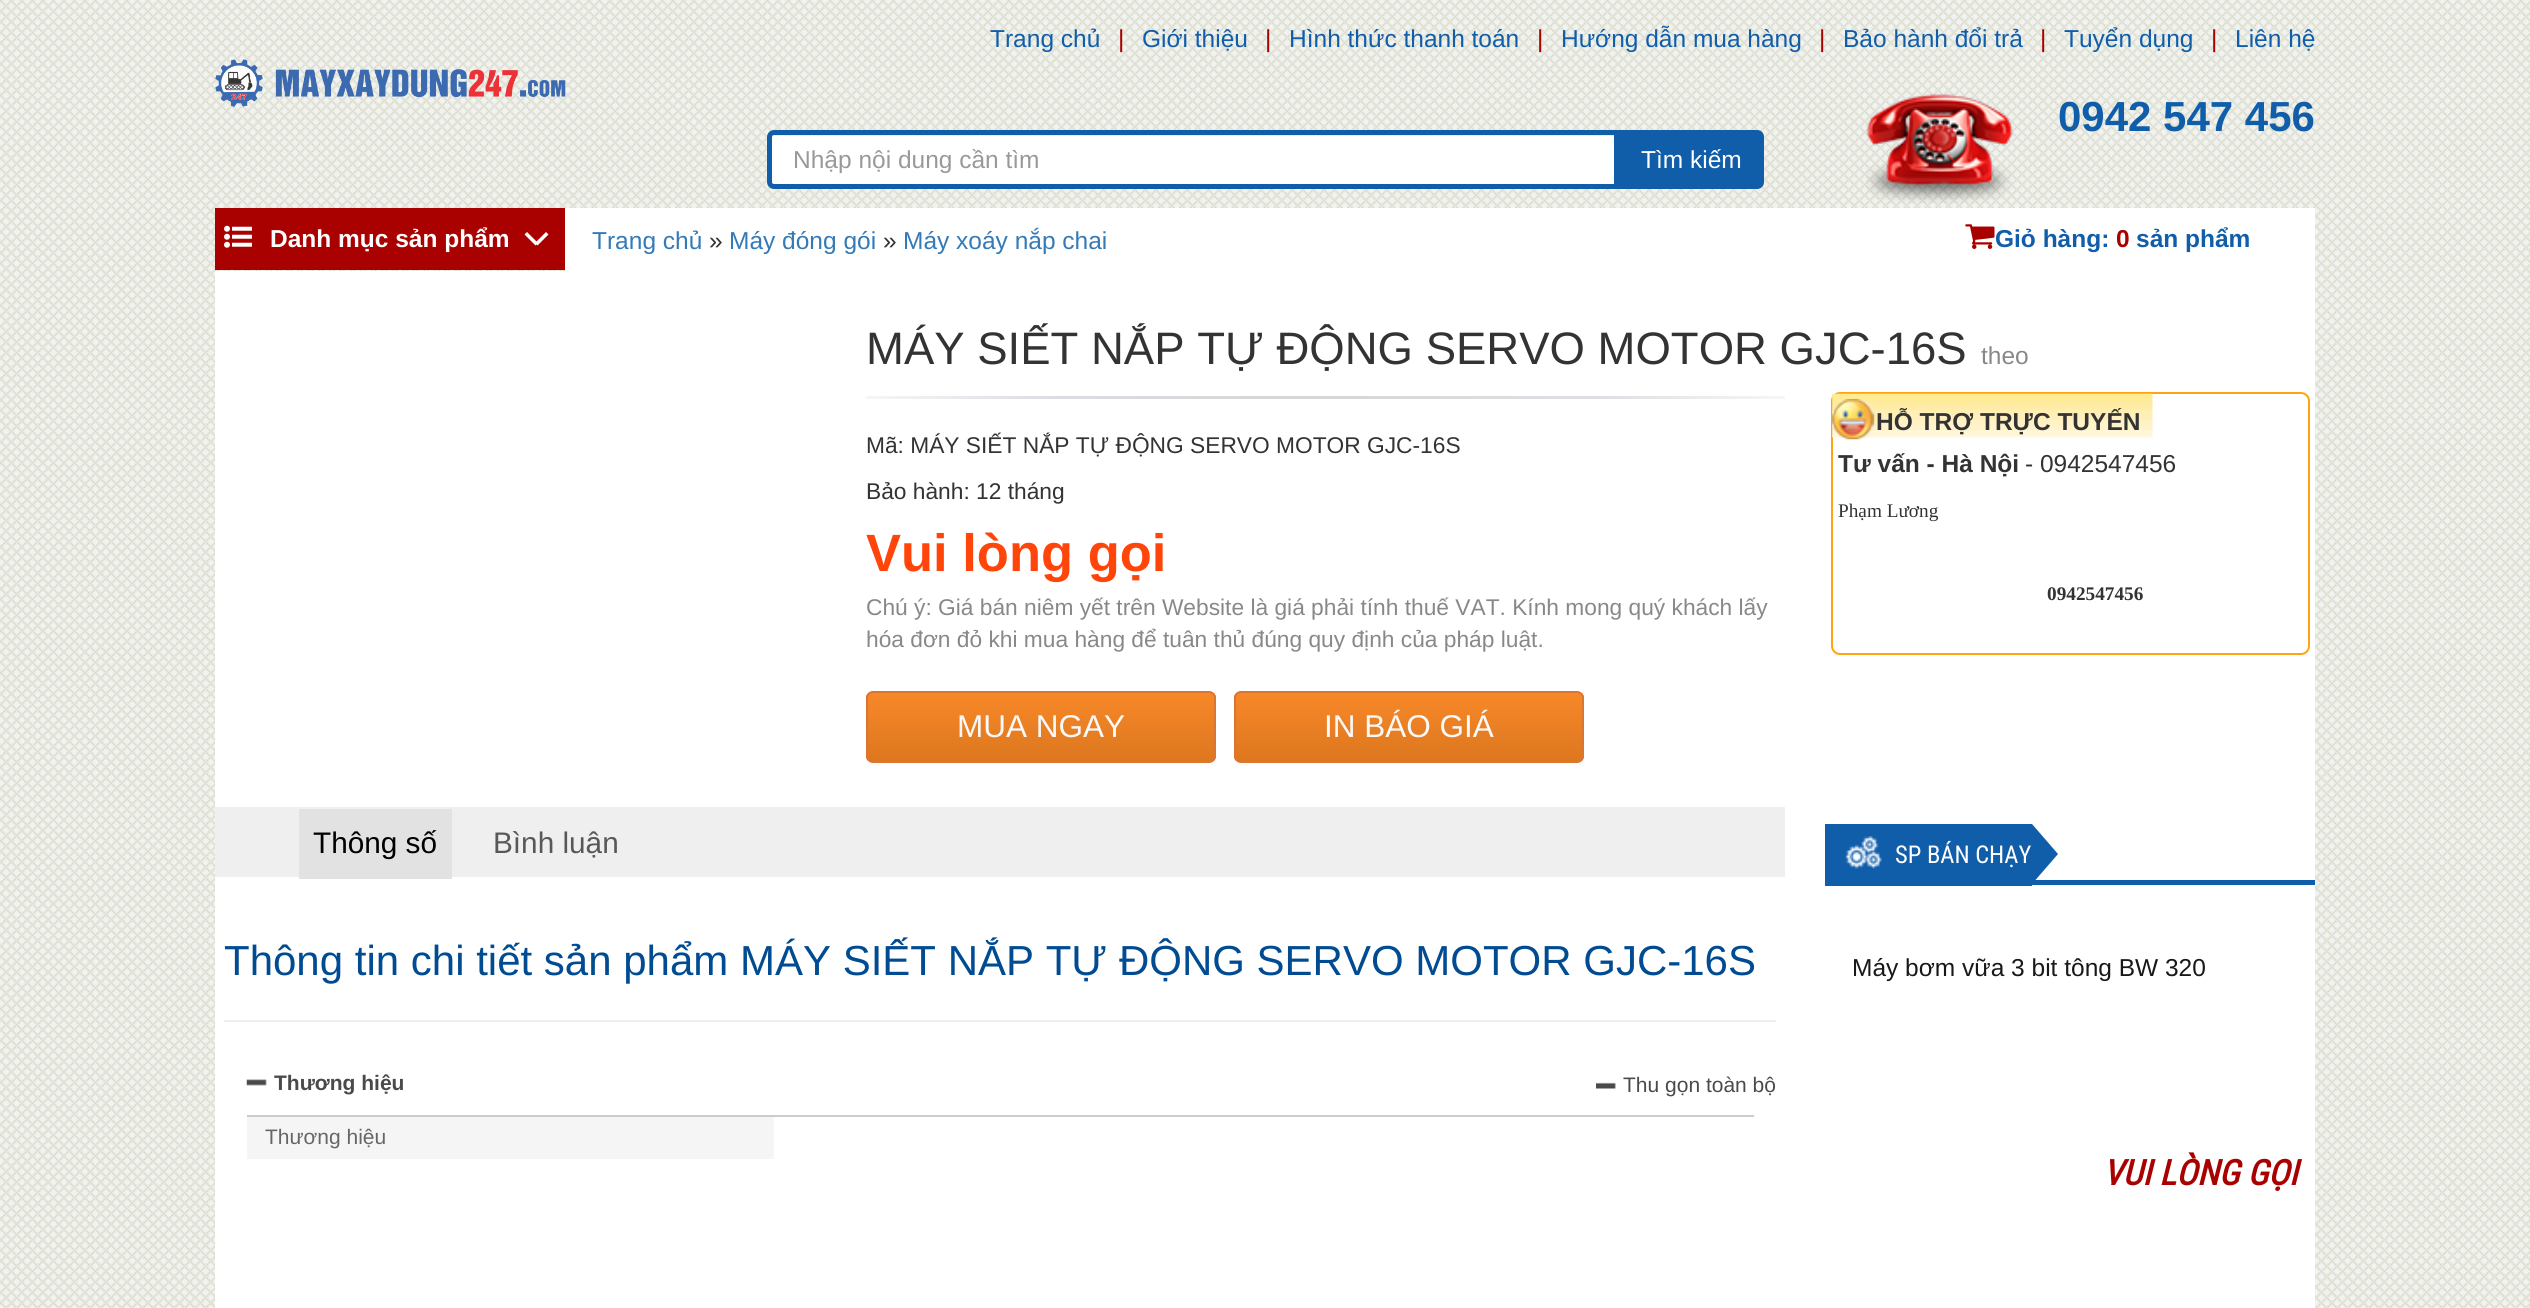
import math
import cairo

surface = cairo.ImageSurface(cairo.FORMAT_RGB24, 2530, 1308)
c = cairo.Context(surface)
options = cairo.FontOptions()
options.set_hint_metrics(cairo.HINT_METRICS_OFF)
options.set_hint_style(cairo.HINT_STYLE_NONE)
c.set_font_options(options)
c.set_miter_limit(4)
def C(code):
 c.set_source_rgb(*(v / 255 for v in bytes.fromhex(code[-6:])))
def F(family, size, italic, bold):
 c.select_font_face(family, cairo.FONT_SLANT_ITALIC if italic else cairo.FONT_SLANT_NORMAL, cairo.FONT_WEIGHT_BOLD if bold else cairo.FONT_WEIGHT_NORMAL)
 c.set_font_size(size)
def T(x, y, s):
 c.move_to(x, y)
 c.show_text(s)
def R(x, y, w, h):
 c.rectangle(x, y, w, h)
 c.fill()
def Q(x, y, w, h, r):
 c.new_sub_path()
 for i, (u, v) in enumerate([(x + w - r, y + h - r), (x + r, y + h - r), (x + r, y + r), (x + w - r, y + r)]):
  c.arc(u, v, r, i * math.pi / 2, (i + 1) * math.pi / 2)
 c.close_path()
def I(path, x, y, w, h):
 c.save()
 c.set_source_surface(cairo.ImageSurface.create_from_png(path), x, y)
 c.rectangle(x, y, w, h)
 c.fill()
 c.restore()
C('ffffff')
c.paint()
I('1.png',0,0,2530,1308)
F('Liberation Sans',24.5,0,0)
C('105daa')
T(990,47,'Trang chủ')
C('a90000')
T(1118,47,'|')
C('105daa')
T(1142,47,'Giới thiệu')
C('a90000')
T(1265,47,'|')
C('105daa')
T(1289,47,'Hình thức thanh toán')
C('a90000')
T(1537,47,'|')
C('105daa')
T(1561,47,'Hướng dẫn mua hàng')
C('a90000')
T(1819,47,'|')
C('105daa')
T(1843,47,'Bảo hành đổi trả')
C('a90000')
T(2040,47,'|')
C('105daa')
T(2064,47,'Tuyển dụng')
C('a90000')
T(2211,47,'|')
C('105daa')
T(2235,47,'Liên hệ')
I('2.png',215,59,351,48)
I('3.png',1866,94,147,109)
F('Liberation Sans',42,0,1)
T(2058,131,'0942 547 456')
C('ffffff')
c.new_path()
c.move_to(774,130)
c.line_to(1619,130)
c.line_to(1619,189)
c.line_to(774,189)
c.curve_to(770,189,767,186,767,182)
c.line_to(767,137)
c.curve_to(767,133,770,130,774,130)
c.close_path()
c.fill()
C('ececec')
c.new_path()
c.move_to(774,136)
c.line_to(1614,136)
c.line_to(1614,135)
c.line_to(774,135)
c.curve_to(772,135,772,137,772,138)
c.curve_to(772,137,773,136,774,136)
c.close_path()
c.fill()
c.new_path()
c.move_to(774,132.5)
c.line_to(1616.5,132.5)
c.line_to(1616.5,186.5)
c.line_to(774,186.5)
c.curve_to(771.5,186.5,769.5,184.5,769.5,182)
c.line_to(769.5,137)
c.curve_to(769.5,134.5,771.5,132.5,774,132.5)
c.close_path()
C('105daa')
c.set_line_width(5)
c.stroke()
F('Liberation Sans',24.5,0,0)
C('999999')
T(793,168,'Nhập nội dung cần tìm')
C('105daa')
c.new_path()
c.move_to(1618,131)
c.line_to(1757,131)
c.curve_to(1760.5,131,1763,133.5,1763,137)
c.line_to(1763,182)
c.curve_to(1763,185.5,1760.5,188,1757,188)
c.line_to(1618,188)
c.close_path()
c.fill_preserve()
c.set_line_width(2)
c.stroke()
C('ffffff')
T(1641,168,'Tìm kiếm')
C('a90000')
R(215,208,350,62)
I('4.png',224,225,28,23)
F('Liberation Sans',24.5,0,1)
C('ffffff')
T(270,247,'Danh mục sản phẩm')
c.new_path()
c.move_to(527,232)
c.line_to(538,243)
c.line_to(535.5,245.5)
c.line_to(524.5,234.5)
c.close_path()
c.fill()
c.new_path()
c.move_to(535,243)
c.line_to(546,232)
c.line_to(548.5,234.5)
c.line_to(537.5,245.5)
c.close_path()
c.fill()
R(565,208,1750,63)
F('Liberation Sans',24.5,0,0)
C('337ab7')
T(592,249,'Trang chủ')
C('333333')
T(709,249,'»')
C('337ab7')
T(729,249,'Máy đóng gói')
C('333333')
T(883,249,'»')
C('337ab7')
T(903,249,'Máy xoáy nắp chai')
I('5.png',1965,224,30,25)
F('Liberation Sans',24.5,0,1)
C('105daa')
T(1995,247,'Giỏ hàng:')
C('a90000')
T(2116,247,'0')
C('105daa')
T(2136,247,'sản phẩm')
C('ffffff')
R(215,271,2100,1037)
F('Liberation Sans',45.5,0,0)
C('333333')
T(866,364,'MÁY SIẾT NẮP TỰ ĐỘNG SERVO MOTOR GJC-16S')
F('Liberation Sans',24.5,0,0)
C('888888')
T(1981,364,'theo')
gradient = cairo.LinearGradient(866,396,1785,396)
gradient.add_color_stop_rgba(0,0.961,0.965,0.965,1)
gradient.add_color_stop_rgba(.21,0.859,0.863,0.886,1)
gradient.add_color_stop_rgba(.49,0.843,0.843,0.843,1)
gradient.add_color_stop_rgba(.8,0.867,0.875,0.89,1)
gradient.add_color_stop_rgba(1,0.961,0.965,0.965,1)
c.set_source(gradient)
R(866,396,919,1)
gradient = cairo.LinearGradient(866,398,1785,398)
gradient.add_color_stop_rgba(0,0.961,0.965,0.965,1)
gradient.add_color_stop_rgba(.21,0.859,0.863,0.886,1)
gradient.add_color_stop_rgba(.49,0.843,0.843,0.843,1)
gradient.add_color_stop_rgba(.8,0.867,0.875,0.89,1)
gradient.add_color_stop_rgba(1,0.961,0.965,0.965,1)
c.set_source(gradient)
R(866,397,919,2)
F('Liberation Sans',22.75,0,0)
C('333333')
T(866,453,'Mã: MÁY SIẾT NẮP TỰ ĐỘNG SERVO MOTOR GJC-16S')
T(866,499,'Bảo hành: 12 tháng')
F('Liberation Sans',52.5,0,1)
C('ff4509')
T(866,571,'Vui lòng gọi')
F('Liberation Sans',22.75,0,0)
C('888888')
T(866,615,'Chú ý: Giá bán niêm yết trên Website là giá phải tính thuế VAT. Kính mong quý khách lấy')
T(866,647,'hóa đơn đỏ khi mua hàng để tuân thủ đúng quy định của pháp luật.')
c.save()
Q(866,691,350,72,7)
c.clip()
gradient = cairo.LinearGradient(1041,693,1041,761)
gradient.add_color_stop_rgba(0,0.969,0.533,0.157,1)
gradient.add_color_stop_rgba(1,0.867,0.467,0.122,1)
c.set_source(gradient)
R(866,693,350,68)
c.restore()
Q(867,692,348,70,6)
C('da7532')
c.stroke()
F('Liberation Sans',31.5,0,0)
C('f9f9f9')
T(957,737,'MUA NGAY')
c.save()
Q(1234,691,350,72,7)
c.clip()
gradient = cairo.LinearGradient(1409,693,1409,761)
gradient.add_color_stop_rgba(0,0.969,0.533,0.157,1)
gradient.add_color_stop_rgba(1,0.867,0.467,0.122,1)
c.set_source(gradient)
R(1234,693,350,68)
c.restore()
Q(1235,692,348,70,6)
C('da7532')
c.stroke()
C('f9f9f9')
T(1324,737,'IN BÁO GIÁ')
Q(1832,393,477,261,8)
C('ffa312')
c.stroke()
I('6.png',1832,393,321,45)
I('7.png',1832,399,43,41)
F('Liberation Sans',24.5,0,1)
C('333333')
T(1876,430,'HỖ TRỢ TRỰC TUYẾN')
T(1838,472,'Tư vấn - Hà Nội')
F('Liberation Sans',24.5,0,0)
T(2025,472,'- 0942547456')
F('Liberation Serif',19.25,0,0)
T(1838,517,'Phạm Lương')
F('Liberation Serif',19.25,0,1)
T(2047,600,'0942547456')
C('efefef')
R(215,807,1570,70)
C('e2e2e2')
R(299,809,153,70)
F('Liberation Sans',29.75,0,0)
C('000000')
T(313,853,'Thông số')
C('585858')
T(493,853,'Bình luận')
F('Liberation Sans',42,0,0)
C('004b91')
T(224,975,'Thông tin chi tiết sản phẩm MÁY SIẾT NẮP TỰ ĐỘNG SERVO MOTOR GJC-16S')
C('eeeeee')
R(224,1020,1552,2)
I('8.png',1596,1082,20,7)
F('Liberation Sans',21,0,0)
C('4a4a4a')
T(1623,1092,'Thu gọn toàn bộ')
I('9.png',246,1079,21,7)
F('Liberation Sans',21,0,1)
T(274,1090,'Thương hiệu')
C('cccccc')
R(247,1115,1507,2)
C('f5f5f5')
R(247,1117,527,42)
F('Liberation Sans',21,0,0)
C('666666')
T(265,1144,'Thương hiệu')
C('105daa')
R(2032,880,283,5)
R(1825,824,207,62)
I('10.png',1845,836,37,33)
F('Roboto Condensed',24.5,0,0)
C('ffffff')
T(1895,863,'SP BÁN CHẠY')
C('105daa')
c.new_path()
c.move_to(2032,884)
c.line_to(2032,824)
c.line_to(2058,854)
c.close_path()
c.fill()
F('Liberation Sans',24.5,0,0)
C('181818')
T(1852,976,'Máy bơm vữa 3 bit tông BW 320')
F('Roboto Condensed',35,1,1)
C('a90000')
T(2103,1185,'VUI LÒNG GỌI')
surface.write_to_png('o.png')
